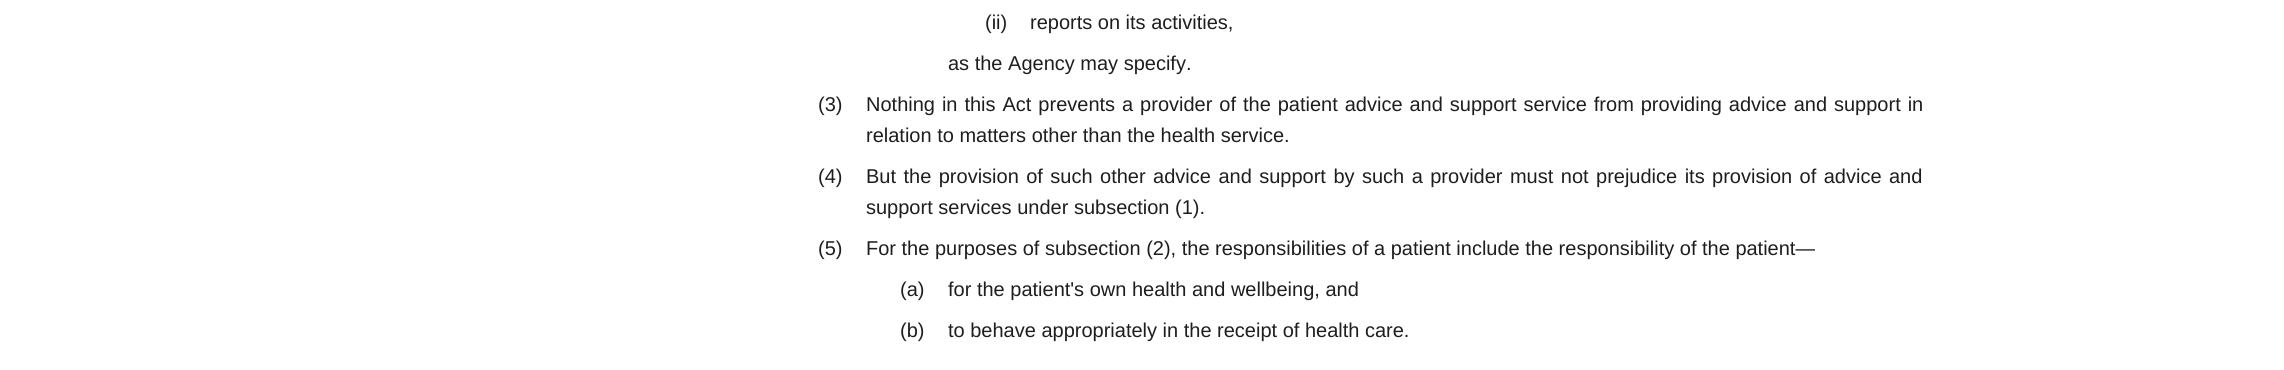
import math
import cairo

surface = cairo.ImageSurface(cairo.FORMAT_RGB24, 2284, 370)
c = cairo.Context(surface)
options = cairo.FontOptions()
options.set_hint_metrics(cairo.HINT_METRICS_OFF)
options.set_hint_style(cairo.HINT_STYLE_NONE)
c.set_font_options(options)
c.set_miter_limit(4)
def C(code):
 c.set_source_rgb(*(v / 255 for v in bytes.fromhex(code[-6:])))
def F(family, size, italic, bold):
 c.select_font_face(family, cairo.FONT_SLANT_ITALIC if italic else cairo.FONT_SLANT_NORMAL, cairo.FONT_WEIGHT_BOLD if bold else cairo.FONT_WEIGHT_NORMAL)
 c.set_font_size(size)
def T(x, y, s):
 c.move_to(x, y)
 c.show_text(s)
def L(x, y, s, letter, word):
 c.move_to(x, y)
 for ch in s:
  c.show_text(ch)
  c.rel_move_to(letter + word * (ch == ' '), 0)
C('ffffff')
c.paint()
F('Liberation Sans',20,0,0)
C('1e1e1e')
T(985,29,'(ii)')
T(1030,29,'reports on its activities,')
T(948,70,'as the Agency may specify.')
T(818,111,'(3)')
L(866,111,'Nothing in this Act prevents a provider of the patient advice and support service from providing advice and support in',0,1.4)
T(866,142,'relation to matters other than the health service.')
T(818,183,'(4)')
L(866,183,'But the provision of such other advice and support by such a provider must not prejudice its provision of advice and',0,1.9)
T(866,214,'support services under subsection (1).')
T(818,255,'(5)')
T(866,255,'For the purposes of subsection (2), the responsibilities of a patient include the responsibility of the patient—')
T(900,296,'(a)')
T(948,296,'for the patient\'s own health and wellbeing, and')
T(900,337,'(b)')
T(948,337,'to behave appropriately in the receipt of health care.')
surface.write_to_png('o.png')
